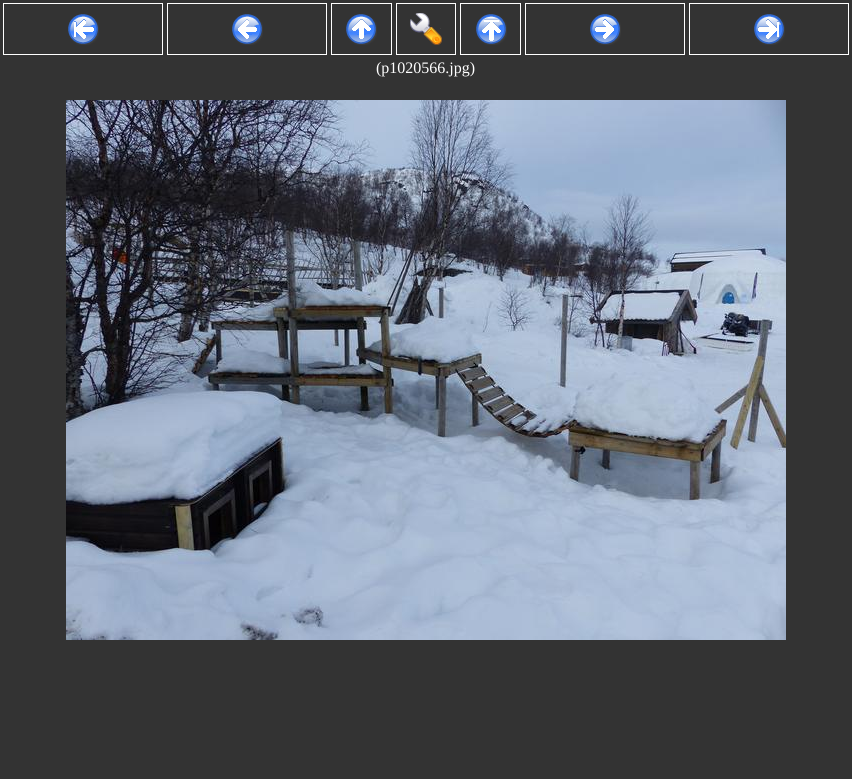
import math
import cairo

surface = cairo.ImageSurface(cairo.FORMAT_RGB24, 852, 779)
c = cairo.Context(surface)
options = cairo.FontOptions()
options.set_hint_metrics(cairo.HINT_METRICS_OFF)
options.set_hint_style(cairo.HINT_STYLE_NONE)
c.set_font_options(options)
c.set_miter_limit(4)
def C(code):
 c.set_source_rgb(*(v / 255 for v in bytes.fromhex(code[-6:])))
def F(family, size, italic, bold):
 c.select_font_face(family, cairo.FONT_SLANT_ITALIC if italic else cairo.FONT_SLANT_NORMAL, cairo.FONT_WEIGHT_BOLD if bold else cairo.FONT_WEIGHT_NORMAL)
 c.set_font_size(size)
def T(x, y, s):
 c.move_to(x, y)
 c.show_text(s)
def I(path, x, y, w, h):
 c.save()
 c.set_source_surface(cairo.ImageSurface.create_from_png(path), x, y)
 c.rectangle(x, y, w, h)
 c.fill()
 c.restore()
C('333333')
c.paint()
c.rectangle(3.5,3.5,159,51)
C('ffffff')
c.set_line_width(1)
c.stroke()
I('1.png',68,14,31,31)
c.rectangle(167.5,3.5,159,51)
c.stroke()
I('2.png',232,14,31,31)
c.rectangle(331.5,3.5,60,51)
c.stroke()
I('3.png',346,14,31,31)
c.rectangle(396.5,3.5,59,51)
c.stroke()
I('4.png',410,13,32,32)
c.rectangle(460.5,3.5,60,51)
c.stroke()
I('5.png',476,14,31,31)
c.rectangle(525.5,3.5,159,51)
c.stroke()
I('6.png',590,14,31,31)
c.rectangle(689.5,3.5,159,51)
c.stroke()
I('7.png',754,14,31,31)
F('Liberation Serif',16,0,0)
T(376,73,'(p1020566.jpg)')
I('8.png',66,100,720,540)
surface.write_to_png('o.png')
